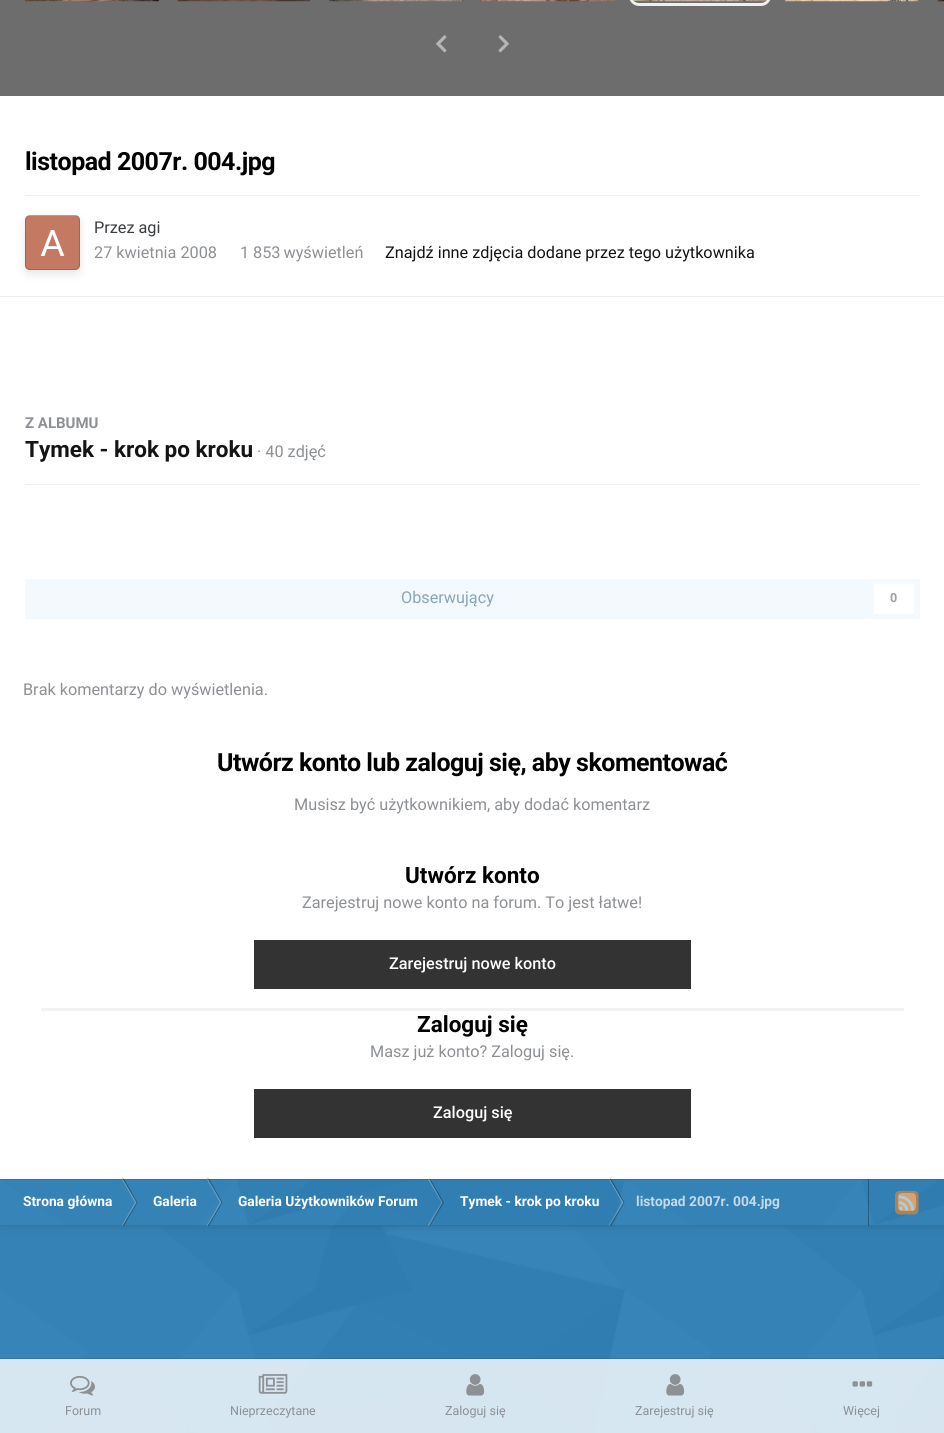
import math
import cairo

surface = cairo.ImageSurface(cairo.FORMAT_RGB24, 944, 1433)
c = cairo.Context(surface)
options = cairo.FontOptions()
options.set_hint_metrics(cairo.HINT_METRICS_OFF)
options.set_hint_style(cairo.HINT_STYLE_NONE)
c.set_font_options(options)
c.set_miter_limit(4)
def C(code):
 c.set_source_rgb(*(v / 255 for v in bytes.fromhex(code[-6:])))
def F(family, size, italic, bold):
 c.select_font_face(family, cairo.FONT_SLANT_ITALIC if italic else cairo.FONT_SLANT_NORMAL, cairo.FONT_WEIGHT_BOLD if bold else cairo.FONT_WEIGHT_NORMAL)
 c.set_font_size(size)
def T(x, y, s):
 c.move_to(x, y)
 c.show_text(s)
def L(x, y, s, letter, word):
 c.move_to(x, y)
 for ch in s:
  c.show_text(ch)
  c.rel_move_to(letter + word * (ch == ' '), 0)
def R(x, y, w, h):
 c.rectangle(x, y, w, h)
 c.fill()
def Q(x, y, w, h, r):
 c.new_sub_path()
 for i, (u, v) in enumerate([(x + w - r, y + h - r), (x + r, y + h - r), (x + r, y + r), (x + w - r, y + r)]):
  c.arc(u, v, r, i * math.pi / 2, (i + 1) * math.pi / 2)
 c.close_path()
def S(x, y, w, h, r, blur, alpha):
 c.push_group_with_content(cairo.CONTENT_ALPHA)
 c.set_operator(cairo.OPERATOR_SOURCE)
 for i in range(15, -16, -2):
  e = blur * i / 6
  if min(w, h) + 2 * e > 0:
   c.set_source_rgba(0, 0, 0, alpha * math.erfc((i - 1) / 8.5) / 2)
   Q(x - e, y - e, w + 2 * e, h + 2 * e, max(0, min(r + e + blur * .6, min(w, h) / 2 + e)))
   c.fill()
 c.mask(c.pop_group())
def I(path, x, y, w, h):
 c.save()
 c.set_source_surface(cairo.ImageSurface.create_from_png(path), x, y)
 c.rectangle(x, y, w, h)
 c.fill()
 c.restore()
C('2e81b6')
c.paint()
I('1.png',0,1226,944,207)
C('000000')
S(0,-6,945,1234,0,2,.08)
S(0,-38,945,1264,0,12.5,.06)
C('ffffff')
R(0,96,944,1083)
C('6d6d6d')
R(0,0,944,96)
C('3d3d3d')
R(158,0,1,1)
I('2.png',25,0,134,2)
I('3.png',177,0,133,2)
R(462,0,1,1)
I('4.png',329,0,134,2)
R(481,0,1,1)
I('5.png',481,0,134,2)
Q(630.5,-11.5,139,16,8.5)
C('efefef')
c.set_line_width(3)
c.stroke()
I('6.png',634,0,133,2)
C('3d3d3d')
R(918,0,1,1)
I('7.png',785,0,134,2)
I('8.png',937,0,7,2)
I('9.png',436,35,11,18)
I('10.png',498,35,11,18)
F('Roboto',25,0,1)
C('000000')
L(25,170,'listopad 2007r. 004.jpg',-.5,0)
C('efeff0')
R(25,195,895,1)
I('11.png',25,215,55,55)
c.save()
c.set_fill_rule(cairo.FILL_RULE_EVEN_ODD)
c.new_path()
c.move_to(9,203)
c.line_to(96,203)
c.line_to(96,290)
c.line_to(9,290)
c.close_path()
c.move_to(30,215)
c.line_to(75,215)
c.curve_to(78,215,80,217,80,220)
c.line_to(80,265)
c.curve_to(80,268,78,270,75,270)
c.line_to(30,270)
c.curve_to(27,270,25,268,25,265)
c.line_to(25,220)
c.curve_to(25,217,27,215,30,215)
c.close_path()
c.clip()
C('000000')
S(25,219,55,55,5,5,.1)
c.restore()
Q(25.5,215.5,54,54,4.5)
c.set_source_rgba(0.227,0.239,0.251,0.3)
c.set_line_width(1)
c.stroke()
F('Roboto',16.25,0,0)
C('3a3d40')
T(94,233,'Przez agi')
C('8d9094')
T(94,258,'27 kwietnia 2008')
T(240,258,'1')
L(253,258,'853 wyświetleń',0,-1)
C('141414')
T(385,258,'Znajdź inne zdjęcia dodane przez tego użytkownika')
C('ebecec')
R(0,296,944,1)
F('Roboto',15,0,1)
C('8d9094')
T(25,428,'Z ALBUMU')
F('Roboto',22.5,0,1)
C('141414')
T(25,457,'Tymek - krok po kroku')
F('Roboto',16.25,0,0)
C('8d9094')
T(257,457,'· 40 zdjęć')
C('efeff0')
R(25,484,895,1)
C('f4f9fd')
R(25,579,895,40)
C('87a6bc')
T(401,603,'Obserwujący')
C('ffffff')
R(874,584,40,30)
F('Roboto',12.5,0,1)
C('9d9ea0')
T(890,602,'0')
F('Roboto',16.25,0,0)
C('8d9094')
T(23,695,'Brak komentarzy do wyświetlenia.')
F('Roboto',25,0,1)
C('000000')
L(217,771,'Utwórz konto lub zaloguj się, aby skomentować',-.5,0)
F('Roboto',16.25,0,0)
C('8d9094')
T(294,810,'Musisz być użytkownikiem, aby dodać komentarz')
C('f2f2f2')
R(41,1008,863,3)
F('Roboto',22.5,0,1)
C('000000')
T(405,883,'Utwórz konto')
F('Roboto',16.25,0,0)
C('8d9094')
T(302,908,'Zarejestruj nowe konto na forum. To jest łatwe!')
C('333333')
R(254,940,437,49)
F('Roboto Medium',16.25,0,0)
C('ffffff')
T(389,969,'Zarejestruj nowe konto')
F('Roboto',22.5,0,1)
C('000000')
T(417,1032,'Zaloguj się')
F('Roboto',16.25,0,0)
C('8d9094')
T(370,1057,'Masz już konto? Zaloguj się.')
C('333333')
R(254,1089,437,49)
F('Roboto Medium',16.25,0,0)
C('ffffff')
T(433,1118,'Zaloguj się')
C('2e81b6')
R(0,1179,944,47)
I('12.png',0,1179,944,48)
C('67a2c8')
c.new_path()
c.move_to(121.5,1178.5)
c.line_to(122.5,1178.5)
c.line_to(136.5,1202.5)
c.line_to(135,1202.5)
c.close_path()
c.fill()
c.set_source_rgba(0,0,0,0.3)
c.new_path()
c.move_to(122.5,1178.5)
c.line_to(124,1178.5)
c.line_to(137.5,1202.5)
c.line_to(136.5,1202.5)
c.close_path()
c.fill()
C('68a3c8')
c.new_path()
c.move_to(206.5,1178.5)
c.line_to(207.5,1178.5)
c.line_to(221.5,1202.5)
c.line_to(220,1202.5)
c.close_path()
c.fill()
c.set_source_rgba(0,0,0,0.3)
c.new_path()
c.move_to(207.5,1178.5)
c.line_to(209,1178.5)
c.line_to(222.5,1202.5)
c.line_to(221.5,1202.5)
c.close_path()
c.fill()
c.save()
c.rectangle(0,1179,868,47)
c.clip()
C('649fc5')
c.new_path()
c.move_to(427.5,1178.5)
c.line_to(429,1178.5)
c.line_to(442.5,1202.5)
c.line_to(441.5,1202.5)
c.close_path()
c.fill()
c.restore()
c.new_path()
c.move_to(429,1178.5)
c.line_to(430,1178.5)
c.line_to(444,1202.5)
c.line_to(442.5,1202.5)
c.close_path()
c.fill()
c.set_source_rgba(1,1,1,0.25)
c.new_path()
c.move_to(608.5,1178.5)
c.line_to(609.5,1178.5)
c.line_to(623.5,1202.5)
c.line_to(622,1202.5)
c.close_path()
c.fill()
c.set_source_rgba(0,0,0,0.3)
c.new_path()
c.move_to(609.5,1178.5)
c.line_to(611,1178.5)
c.line_to(624.5,1202.5)
c.line_to(623.5,1202.5)
c.close_path()
c.fill()
R(868,1179,1,47)
c.set_source_rgba(0.227,0.239,0.251,0.2)
R(0,1179,944,1)
C('67a2c8')
c.new_path()
c.move_to(121.5,1226)
c.line_to(122.5,1226)
c.line_to(136.5,1202.5)
c.line_to(135,1202.5)
c.close_path()
c.fill()
c.set_source_rgba(0,0,0,0.3)
c.new_path()
c.move_to(122.5,1226)
c.line_to(124,1226)
c.line_to(137.5,1202.5)
c.line_to(136.5,1202.5)
c.close_path()
c.fill()
C('69a4ca')
c.new_path()
c.move_to(206.5,1226)
c.line_to(207.5,1226)
c.line_to(221.5,1202.5)
c.line_to(220,1202.5)
c.close_path()
c.fill()
c.set_source_rgba(0,0,0,0.3)
c.new_path()
c.move_to(207.5,1226)
c.line_to(209,1226)
c.line_to(222.5,1202.5)
c.line_to(221.5,1202.5)
c.close_path()
c.fill()
C('649fc5')
c.new_path()
c.move_to(427.5,1226)
c.line_to(429,1226)
c.line_to(442.5,1202.5)
c.line_to(441.5,1202.5)
c.close_path()
c.fill()
c.set_source_rgba(0,0,0,0.3)
c.new_path()
c.move_to(429,1226)
c.line_to(430,1226)
c.line_to(444,1202.5)
c.line_to(442.5,1202.5)
c.close_path()
c.fill()
c.set_source_rgba(1,1,1,0.25)
c.new_path()
c.move_to(608.5,1226)
c.line_to(609.5,1226)
c.line_to(623.5,1202.5)
c.line_to(622,1202.5)
c.close_path()
c.fill()
c.set_source_rgba(0,0,0,0.3)
c.new_path()
c.move_to(609.5,1226)
c.line_to(611,1226)
c.line_to(624.5,1202.5)
c.line_to(623.5,1202.5)
c.close_path()
c.fill()
c.set_source_rgba(0.227,0.239,0.251,0.2)
R(0,1225,944,1)
F('Roboto',13.75,0,1)
C('ffffff')
T(23,1206,'Strona główna')
T(153,1206,'Galeria')
T(238,1206,'Galeria Użytkowników Forum')
T(460,1206,'Tymek - krok po kroku')
C('c2dae9')
T(636,1206,'listopad 2007r. 004.jpg')
c.set_source_rgba(1,1,1,0.6)
Q(898,1193,18,18,4)
c.fill()
I('13.png',895,1190,24,25)
c.set_source_rgba(0,0,0,0.1)
R(0,1358,944,1)
c.set_source_rgba(1,1,1,0.8)
R(0,1359,944,74)
I('14.png',70,1375,25,21)
F('Roboto',12.5,0,0)
C('8d9094')
T(65,1415,'Forum')
I('15.png',258,1374,30,20)
T(230,1415,'Nieprzeczytane')
I('16.png',466,1374,19,22)
T(445,1415,'Zaloguj się')
I('17.png',666,1374,19,22)
T(635,1415,'Zarejestruj się')
I('18.png',852,1381,21,6)
T(843,1415,'Więcej')
surface.write_to_png('o.png')
